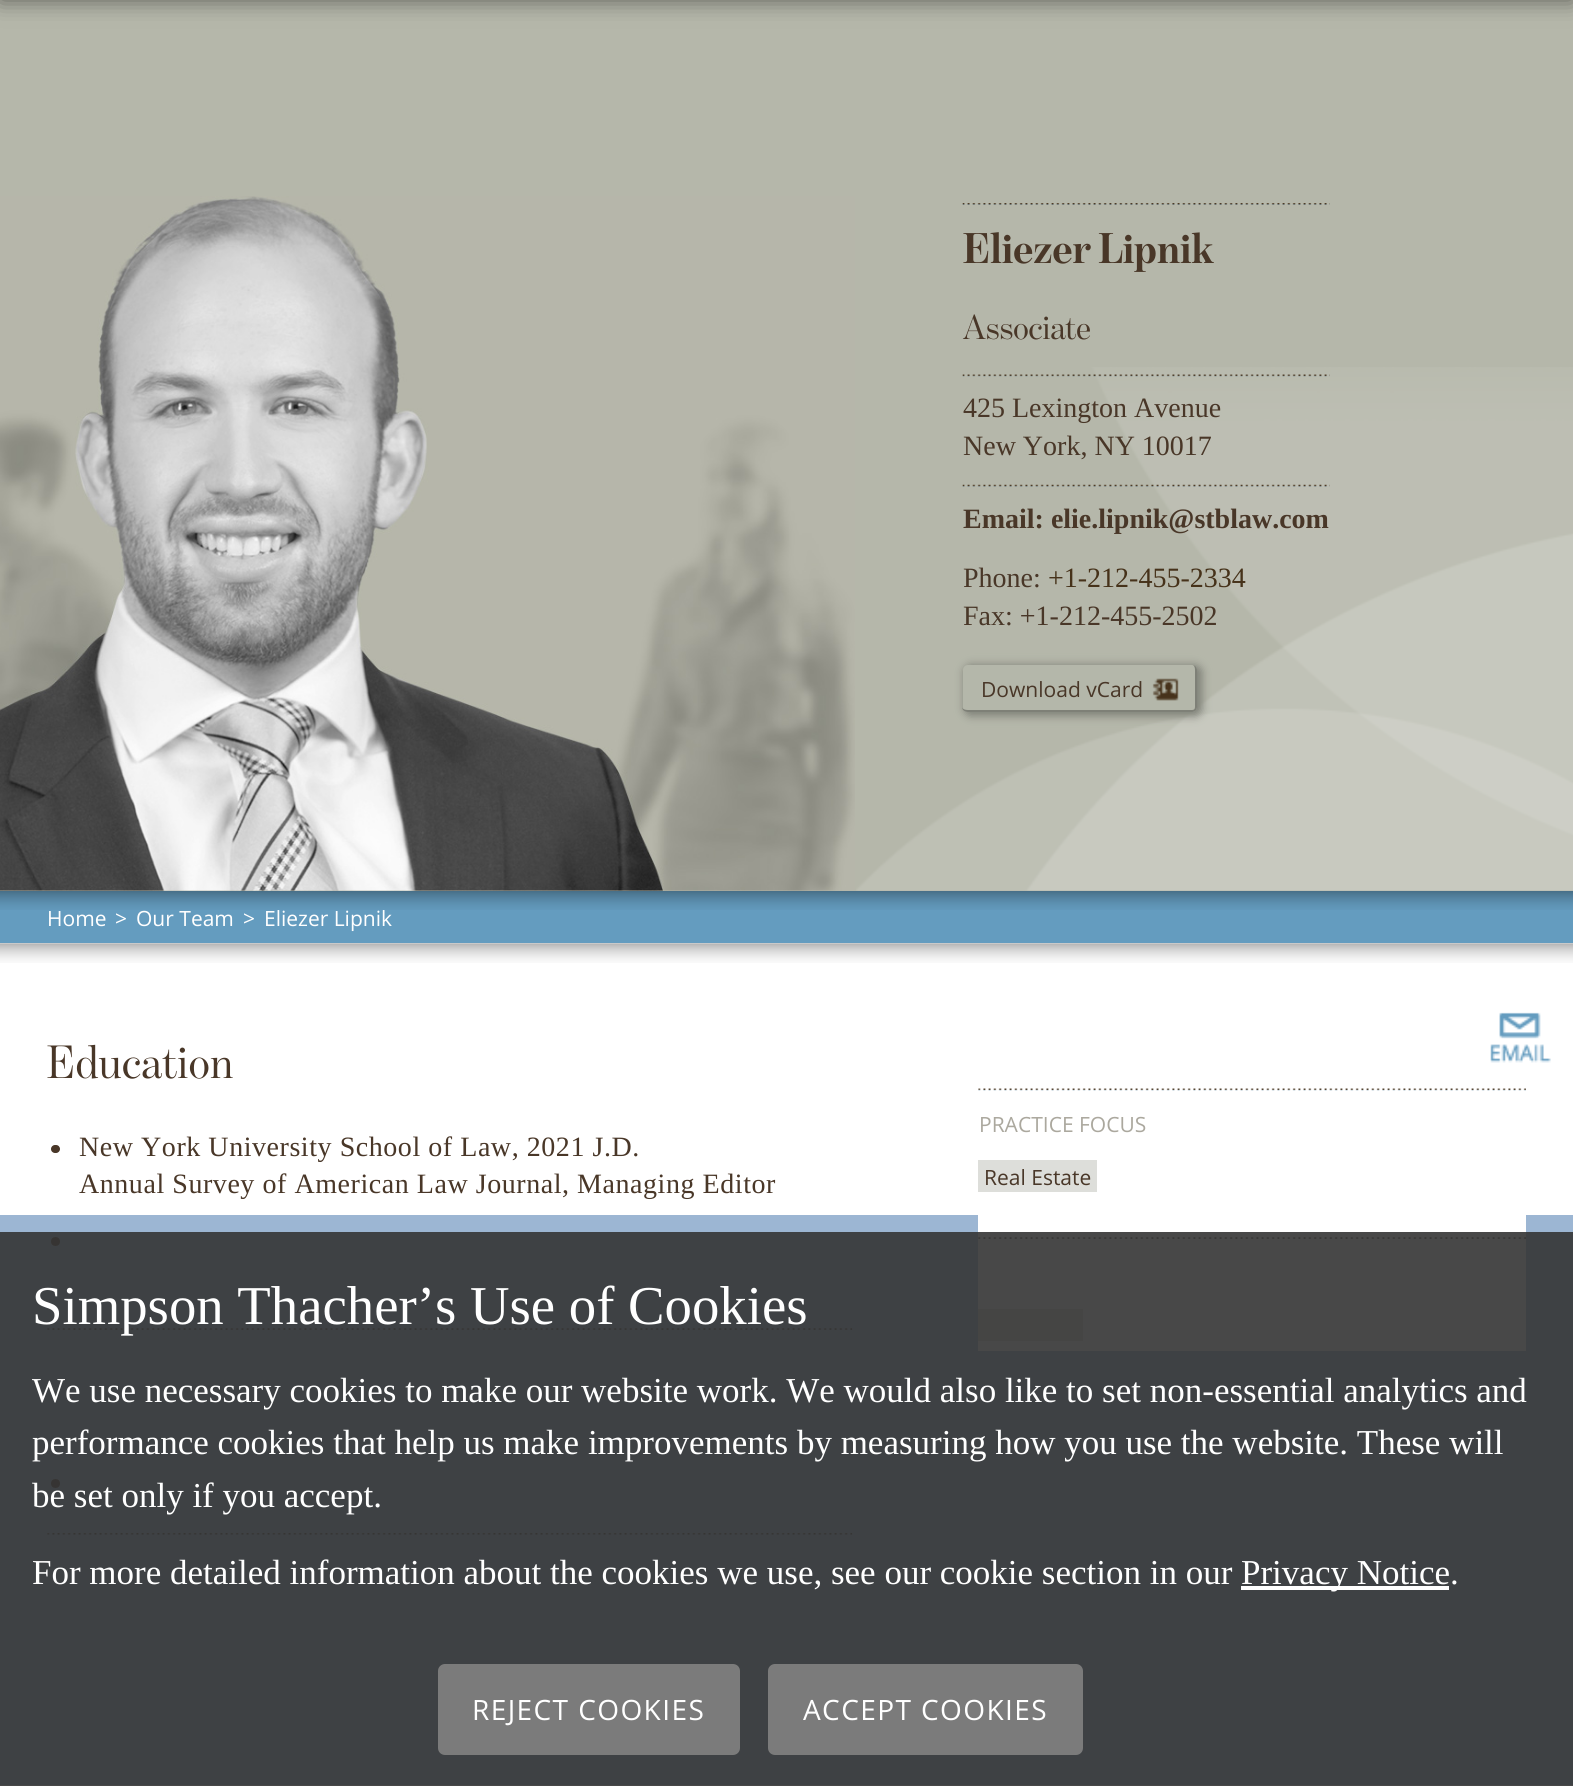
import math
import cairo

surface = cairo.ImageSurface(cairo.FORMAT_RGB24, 1573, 1786)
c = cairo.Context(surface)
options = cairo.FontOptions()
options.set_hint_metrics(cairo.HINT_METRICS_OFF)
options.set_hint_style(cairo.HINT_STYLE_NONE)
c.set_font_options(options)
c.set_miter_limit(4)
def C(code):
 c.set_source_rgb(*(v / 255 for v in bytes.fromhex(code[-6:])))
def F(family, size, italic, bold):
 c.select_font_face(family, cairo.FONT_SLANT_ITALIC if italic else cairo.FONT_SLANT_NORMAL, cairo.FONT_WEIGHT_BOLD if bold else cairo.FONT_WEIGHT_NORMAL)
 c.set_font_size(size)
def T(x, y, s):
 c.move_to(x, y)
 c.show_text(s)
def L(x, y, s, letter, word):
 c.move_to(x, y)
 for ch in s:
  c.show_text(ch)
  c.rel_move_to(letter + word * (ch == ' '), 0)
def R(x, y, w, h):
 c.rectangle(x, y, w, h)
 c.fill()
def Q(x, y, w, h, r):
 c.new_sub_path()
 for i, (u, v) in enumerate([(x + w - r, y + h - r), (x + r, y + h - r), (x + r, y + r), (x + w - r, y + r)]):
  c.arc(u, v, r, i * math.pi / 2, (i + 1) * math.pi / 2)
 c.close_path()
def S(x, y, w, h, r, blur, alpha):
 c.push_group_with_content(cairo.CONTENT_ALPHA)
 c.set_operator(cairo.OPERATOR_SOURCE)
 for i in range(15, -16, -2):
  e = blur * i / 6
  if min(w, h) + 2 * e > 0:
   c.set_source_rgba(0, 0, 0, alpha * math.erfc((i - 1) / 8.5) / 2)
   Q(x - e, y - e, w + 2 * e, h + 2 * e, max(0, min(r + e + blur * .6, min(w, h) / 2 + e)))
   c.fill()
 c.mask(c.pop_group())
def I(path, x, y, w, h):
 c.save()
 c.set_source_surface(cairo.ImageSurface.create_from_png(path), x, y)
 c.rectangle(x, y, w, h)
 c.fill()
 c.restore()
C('ffffff')
c.paint()
C('b5b7aa')
R(0,0,1573,891)
C('000000')
S(0,-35,1573,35,0,11.5,.5)
I('1.png',0,196,855,695)
I('2.png',962,203,368,2)
F('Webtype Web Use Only',43.75,0,1)
C('493728')
T(963,263,'Eliezer Lipnik')
F('Webtype Web Use Only',35,0,0)
T(963,339,'Associate')
I('6.png',856,367,717,524)
I('3.png',962,374,368,3)
F('Liberation Serif',28,0,0)
T(963,417,'425 Lexington Avenue')
T(963,455,'New York, NY 10017')
I('4.png',962,484,368,3)
F('Liberation Serif',28,0,1)
T(963,528,'Email: elie.lipnik@stblaw.com')
F('Liberation Serif',28,0,0)
T(963,587,'Phone:')
C('46321a')
T(1048,587,'+1-212-455-2334')
C('493728')
T(963,625,'Fax: +1-212-455-2502')
C('7e8077')
S(964,665,238,51,7,4.5,1)
C('b4b7aa')
Q(963,665,234,47,5)
c.fill()
C('7e8077')
c.set_fill_rule(cairo.FILL_RULE_EVEN_ODD)
c.new_path()
c.move_to(968,665)
c.line_to(1192,665)
c.curve_to(1195,665,1197,667,1197,670)
c.line_to(1197,707)
c.curve_to(1197,710,1195,712,1192,712)
c.line_to(968,712)
c.curve_to(965,712,962,710,962,707)
c.line_to(962,670)
c.curve_to(962,667,965,665,968,665)
c.close_path()
c.move_to(968,665)
c.line_to(1192,665)
c.curve_to(1194,665,1195,667,1195,670)
c.line_to(1195,707)
c.curve_to(1195,709,1194,710,1192,710)
c.line_to(968,710)
c.curve_to(965,710,962,709,962,707)
c.line_to(962,670)
c.curve_to(962,667,965,665,968,665)
c.close_path()
c.fill()
I('5.png',1152,678,27,23)
F('Open Sans',21,0,0)
C('493728')
T(981,697,'Download vCard')
C('649cbf')
R(0,891,1573,52)
I('7.png',0,891,1573,19)
C('ffffff')
T(47,926,'Home')
T(115,926,'>')
T(136,926,'Our Team')
T(243,926,'>')
T(264,926,'Eliezer Lipnik')
I('8.png',0,943,1573,20)
I('9.png',1490,1012,61,51)
F('Webtype Web Use Only',47.5,0,0)
C('493728')
L(47,1078,'Education',.55,0)
Q(51,1145,9,8,4)
c.fill()
F('Liberation Serif',28,0,0)
L(79,1156,'New York University School of Law, 2021 J.D.',.55,0)
L(79,1193,'Annual Survey of American Law Journal, Managing Editor',.55,0)
C('9cb6d3')
R(0,1215,1573,570)
C('493728')
c.new_path()
c.arc(55.5,1241.5,4.5,0,2 * math.pi)
c.fill()
I('10.png',47,1328,806,2)
c.arc(55.5,1483.5,4.5,0,2 * math.pi)
c.fill()
I('11.png',47,1533,806,2)
C('ffffff')
R(978,1215,548,136)
I('12.png',978,1088,548,3)
F('Open Sans',21,0,0)
C('aba89e')
T(979,1132,'PRACTICE FOCUS')
C('dddeda')
R(978,1160,119,32)
C('493728')
T(984,1185,'Real Estate')
I('13.png',978,1237,548,2)
C('dddeda')
R(978,1309,105,32)
c.set_source_rgba(0.208,0.208,0.208,0.9)
R(0,1232,1573,554)
F('Liberation Serif',54.75,0,0)
C('ffffff')
T(32,1324,'Simpson Thacher’s Use of Cookies')
F('Liberation Serif',35,0,0)
T(32,1402,'We use necessary cookies to make our website work. We would also like to set non-essential analytics and')
T(32,1454,'performance cookies that help us make improvements by measuring how you use the website. These will')
T(32,1507,'be set only if you accept.')
T(32,1584,'For more detailed information about the cookies we use, see our cookie section in our')
R(1241,1586,208,4)
T(1241,1584,'Privacy Notice')
T(1450,1584,'.')
C('7b7b7b')
Q(438,1664,302,91,7)
c.fill()
F('Open Sans',28,0,0)
C('ffffff')
L(472,1720,'REJECT COOKIES',1.4,0)
C('7b7b7b')
Q(768,1664,315,91,7)
c.fill()
C('ffffff')
L(803,1720,'ACCEPT COOKIES',1.4,0)
surface.write_to_png('o.png')
